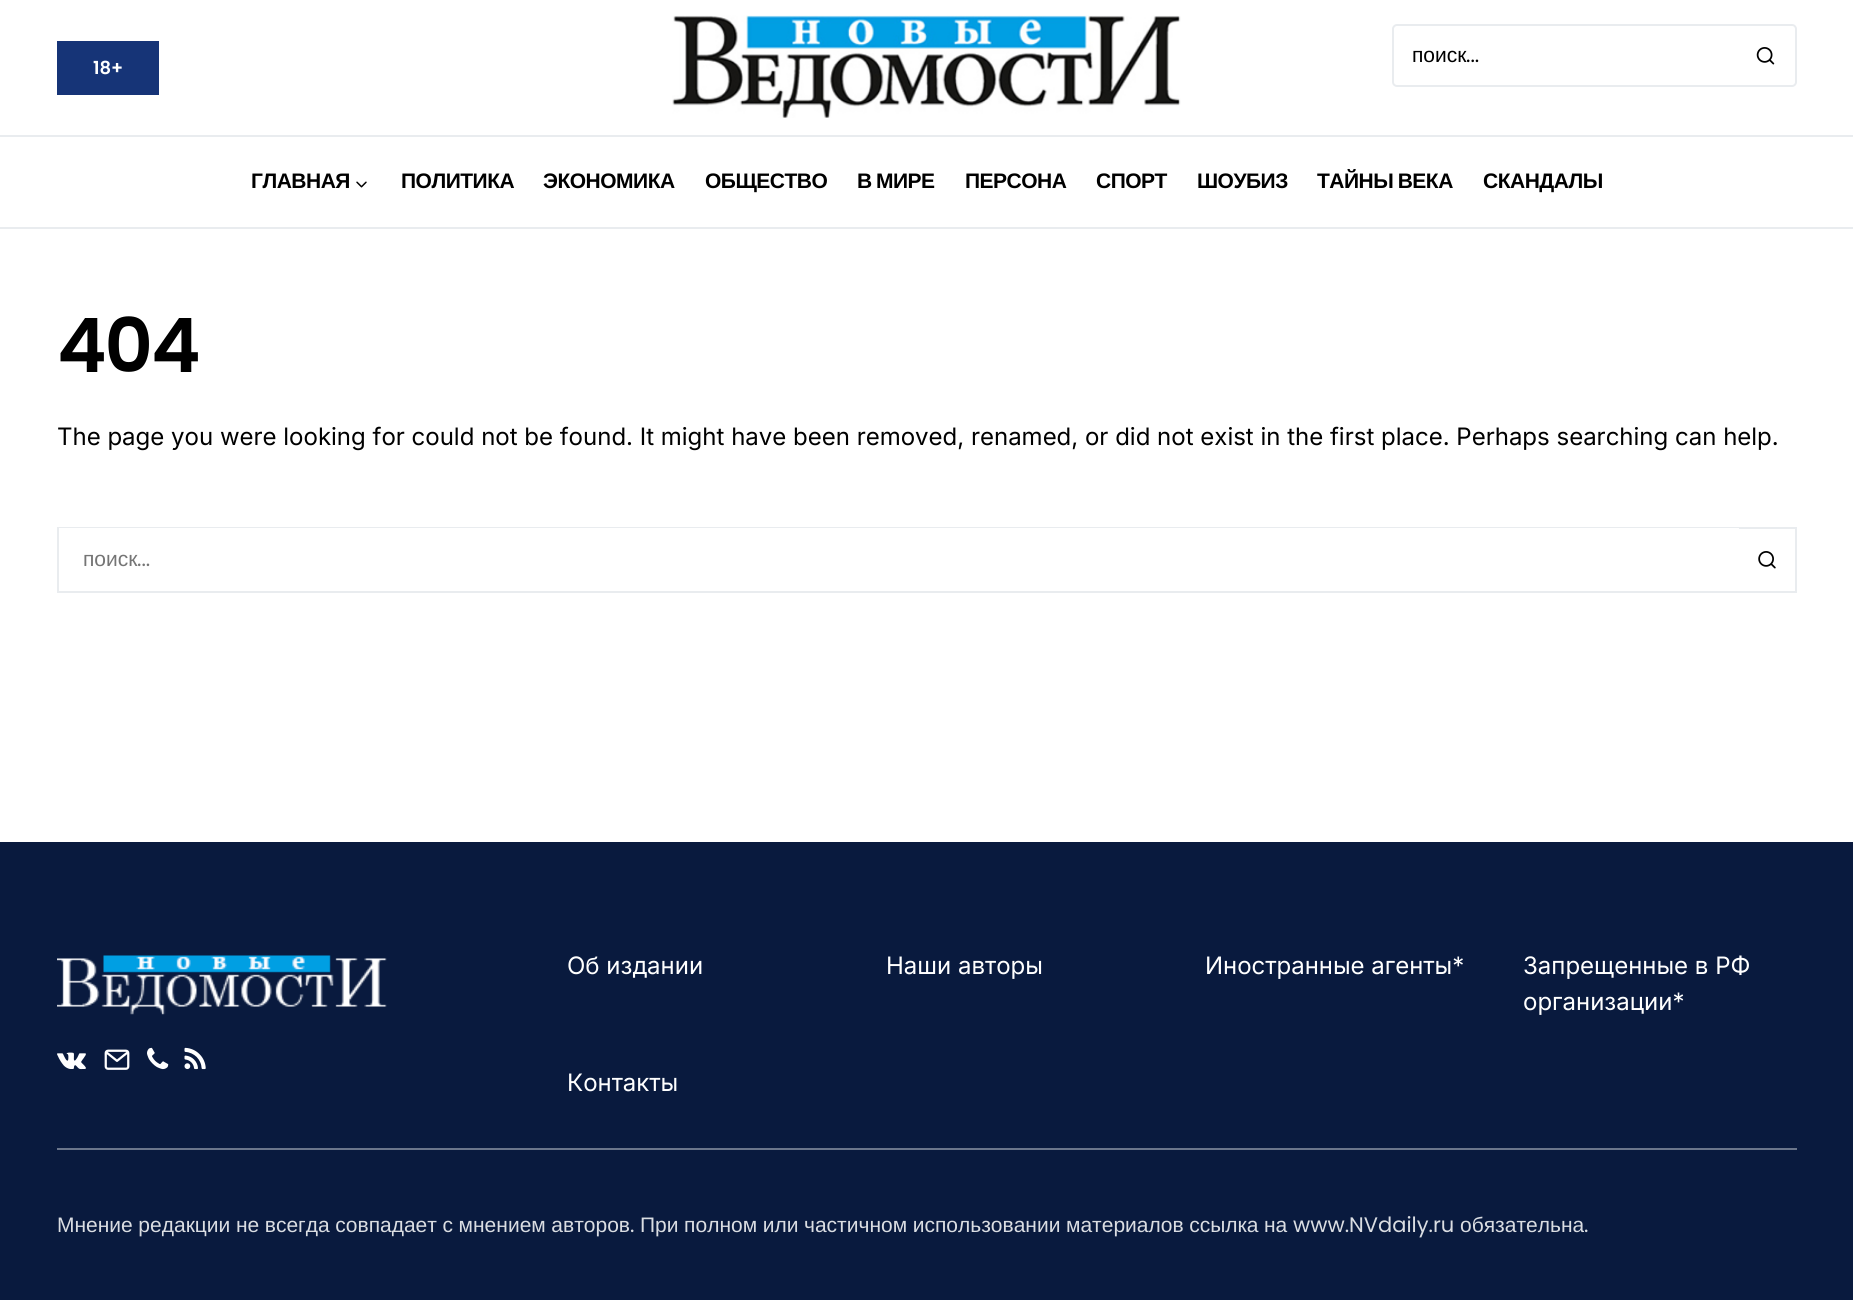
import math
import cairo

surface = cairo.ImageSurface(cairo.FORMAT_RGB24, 1853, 1300)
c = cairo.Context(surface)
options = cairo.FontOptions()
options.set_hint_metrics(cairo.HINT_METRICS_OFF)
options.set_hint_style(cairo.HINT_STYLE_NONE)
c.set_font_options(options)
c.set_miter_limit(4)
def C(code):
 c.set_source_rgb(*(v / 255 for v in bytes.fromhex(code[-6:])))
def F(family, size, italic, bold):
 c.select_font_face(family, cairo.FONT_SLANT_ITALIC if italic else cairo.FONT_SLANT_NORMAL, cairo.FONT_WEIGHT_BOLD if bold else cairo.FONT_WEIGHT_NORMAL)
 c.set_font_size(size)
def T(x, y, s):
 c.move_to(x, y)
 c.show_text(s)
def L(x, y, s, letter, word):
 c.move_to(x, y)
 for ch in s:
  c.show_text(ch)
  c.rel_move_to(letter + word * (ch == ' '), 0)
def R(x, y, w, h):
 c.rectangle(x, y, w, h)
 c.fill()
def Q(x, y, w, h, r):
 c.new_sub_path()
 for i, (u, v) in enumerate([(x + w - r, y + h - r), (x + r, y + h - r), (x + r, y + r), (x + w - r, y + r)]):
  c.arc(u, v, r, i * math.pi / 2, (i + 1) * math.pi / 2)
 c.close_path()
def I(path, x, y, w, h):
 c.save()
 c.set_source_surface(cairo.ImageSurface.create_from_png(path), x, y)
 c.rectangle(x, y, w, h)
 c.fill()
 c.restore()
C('ffffff')
c.paint()
C('e9ecef')
R(0,135,1853,2)
I('1.png',672,15,509,103)
Q(1393,25,403,61,4)
c.stroke()
F('Liberation Sans',21,0,0)
C('000000')
T(1412,62,'поиск')
F('Poppins',21,0,0)
T(1466,62,'...')
I('2.png',1756,47,19,18)
C('163477')
R(57,41,102,54)
F('Poppins SemiBold',18,0,0)
C('ffffff')
T(93,74,'18+')
C('e9ecef')
R(0,227,1853,2)
F('Liberation Sans',21,0,1)
C('000000')
L(251,188,'ГЛАВНАЯ',-.5,0)
I('3.png',356,181,11,7)
L(401,188,'ПОЛИТИКА',-.5,0)
L(543,188,'ЭКОНОМИКА',-.5,0)
L(705,188,'ОБЩЕСТВО',-.5,0)
L(857,188,'В МИРЕ',-.5,-1)
L(965,188,'ПЕРСОНА',-.5,0)
L(1096,188,'СПОРТ',-.5,0)
L(1197,188,'ШОУБИЗ',-.5,0)
L(1317,188,'ТАЙНЫ ВЕКА',-.5,-1)
L(1483,188,'СКАНДАЛЫ',-.5,0)
F('Poppins SemiBold',75,0,0)
L(57,372,'404',-2,0)
F('Inter',24,0,0)
T(57,445,'The page you were looking for could not be found. It might have been removed, renamed, or did not exist in the first place. Perhaps searching can help.')
c.rectangle(58,528,1738,64)
C('e9ecef')
c.stroke()
C('ffffff')
R(59,528,1680,1)
F('Liberation Sans',21,0,0)
C('757575')
T(83,566,'поиск')
F('Poppins',21,0,0)
T(137,566,'...')
I('4.png',1758,551,18,18)
C('091a3e')
R(0,842,1853,458)
I('5.png',57,955,330,60)
I('6.png',57,1052,29,18)
I('7.png',104,1049,26,21)
I('8.png',147,1047,22,23)
I('9.png',184,1047,22,23)
F('Inter',24,0,0)
C('ffffff')
T(567,974,'Об издании')
T(886,974,'Наши авторы')
T(1205,974,'Иностранные агенты*')
T(1523,974,'Запрещенные в РФ')
T(1523,1010,'организации*')
T(567,1091,'Контакты')
C('6b768b')
R(57,1148,1740,2)
F('Liberation Sans',21,0,0)
C('dadde2')
L(57,1232,'Мнение редакции не всегда совпадает с мнением авторов',0,-.25)
F('Poppins',21,0,0)
T(630,1232,'.')
F('Liberation Sans',21,0,0)
L(640,1232,'При полном или частичном использовании материалов ссылка на',0,-.25)
F('Poppins',21,0,0)
T(1293,1232,'www.NVdaily.ru')
F('Liberation Sans',21,0,0)
T(1460,1232,'обязательна')
F('Poppins',21,0,0)
T(1584,1232,'.')
surface.write_to_png('o.png')
